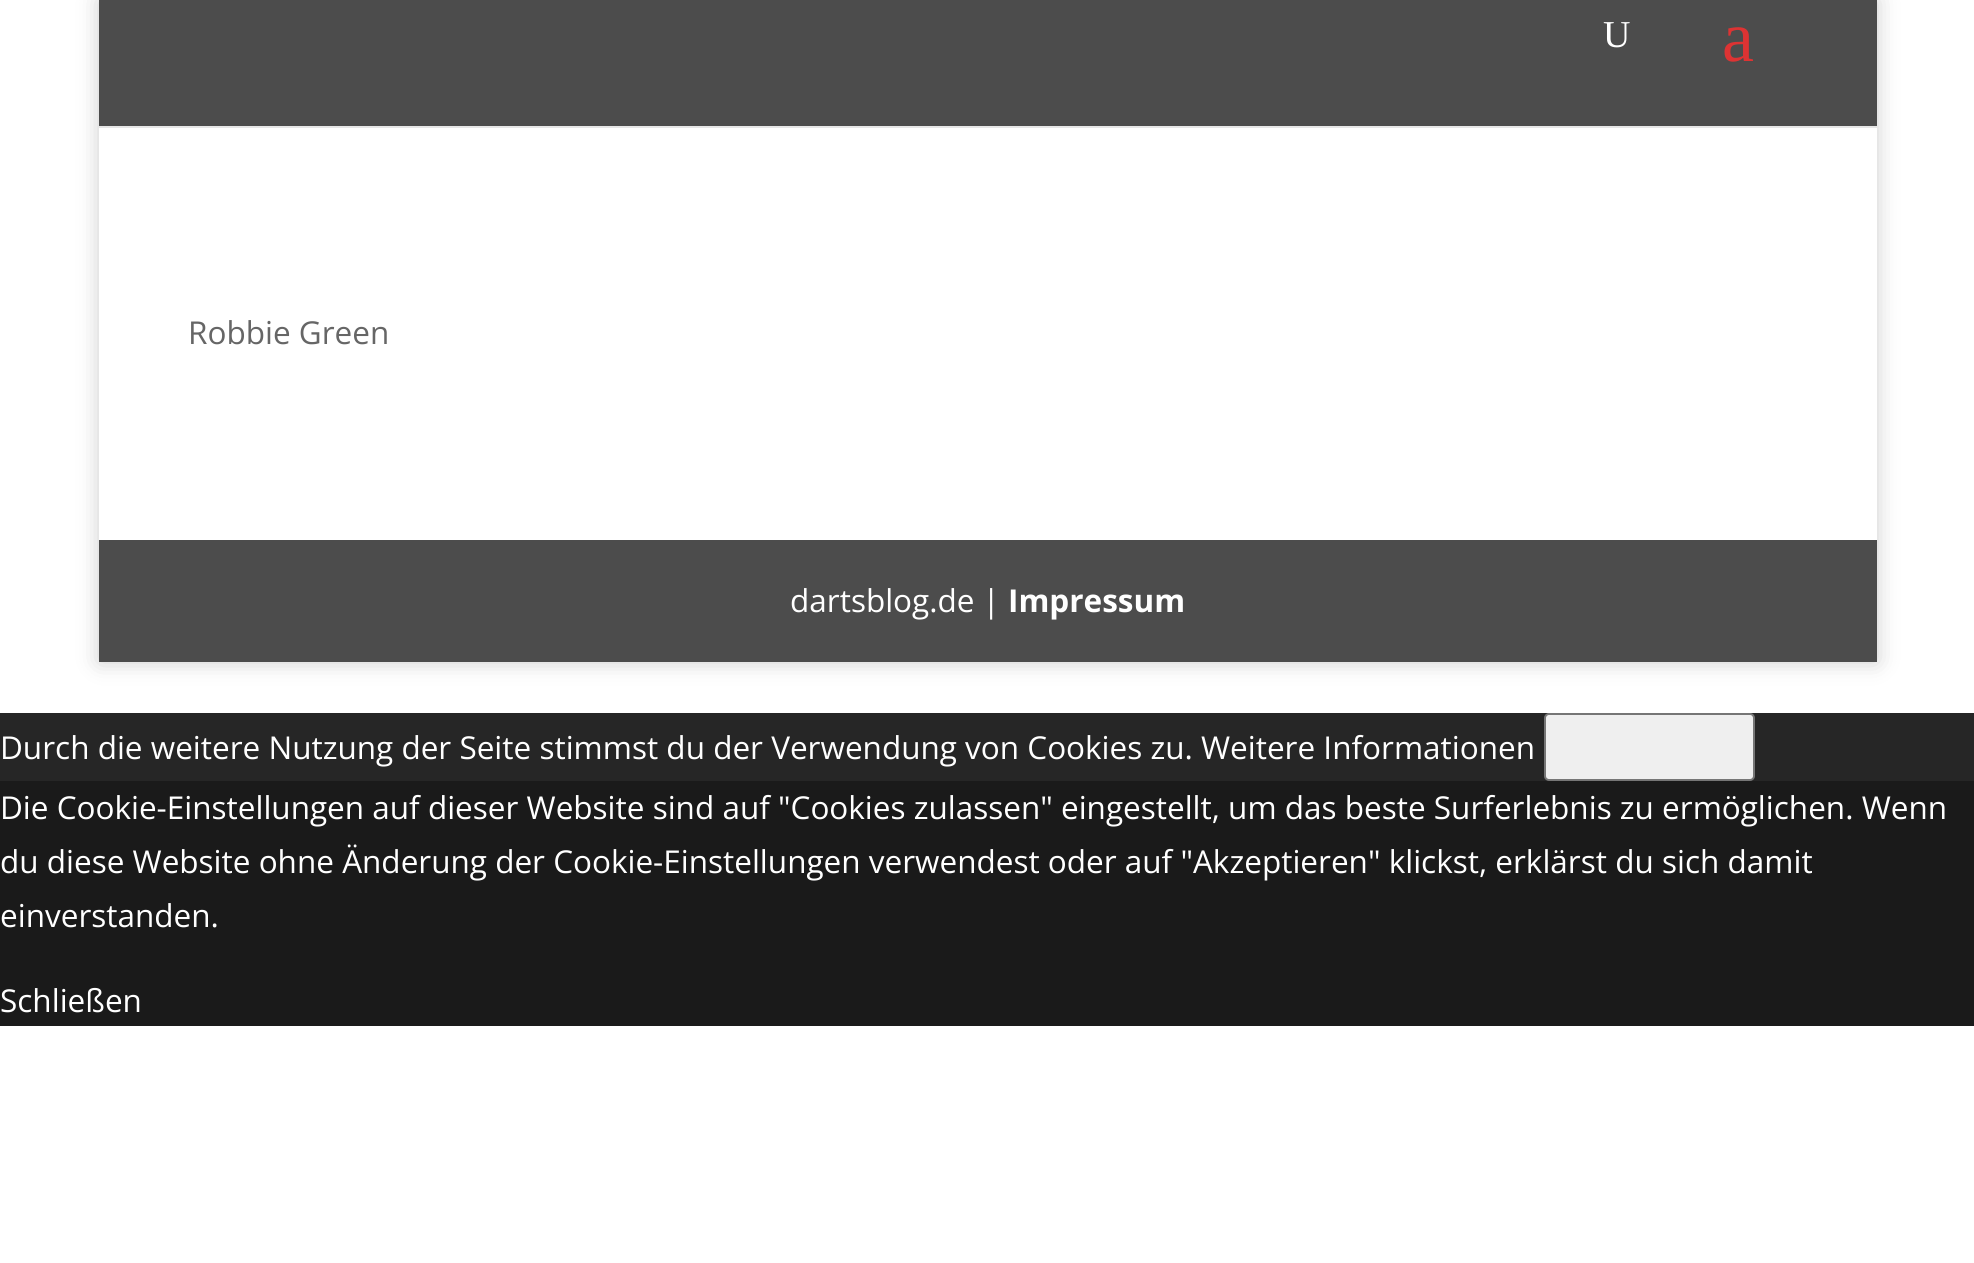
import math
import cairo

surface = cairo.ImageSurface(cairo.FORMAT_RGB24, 1974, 1263)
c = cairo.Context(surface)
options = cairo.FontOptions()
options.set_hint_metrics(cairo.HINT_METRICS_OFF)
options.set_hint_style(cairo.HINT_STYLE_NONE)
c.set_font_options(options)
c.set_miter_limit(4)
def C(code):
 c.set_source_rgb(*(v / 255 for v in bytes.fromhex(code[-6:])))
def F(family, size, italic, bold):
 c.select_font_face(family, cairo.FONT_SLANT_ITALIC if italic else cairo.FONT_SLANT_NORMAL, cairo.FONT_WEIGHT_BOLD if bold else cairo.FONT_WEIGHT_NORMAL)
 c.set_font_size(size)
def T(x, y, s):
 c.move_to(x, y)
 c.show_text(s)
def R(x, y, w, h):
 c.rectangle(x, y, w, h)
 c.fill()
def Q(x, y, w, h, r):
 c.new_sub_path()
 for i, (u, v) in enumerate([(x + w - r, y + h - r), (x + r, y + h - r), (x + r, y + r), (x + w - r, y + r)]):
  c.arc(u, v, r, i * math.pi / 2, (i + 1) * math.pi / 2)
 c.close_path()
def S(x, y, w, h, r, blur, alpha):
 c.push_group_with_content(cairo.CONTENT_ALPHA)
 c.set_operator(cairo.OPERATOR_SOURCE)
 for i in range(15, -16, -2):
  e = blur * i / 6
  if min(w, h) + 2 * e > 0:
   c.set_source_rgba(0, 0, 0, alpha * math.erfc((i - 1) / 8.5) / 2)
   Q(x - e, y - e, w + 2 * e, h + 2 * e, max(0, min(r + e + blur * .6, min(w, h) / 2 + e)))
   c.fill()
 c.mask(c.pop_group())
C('ffffff')
c.paint()
c.save()
c.set_fill_rule(cairo.FILL_RULE_EVEN_ODD)
c.new_path()
c.move_to(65,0)
c.line_to(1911,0)
c.line_to(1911,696)
c.line_to(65,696)
c.close_path()
c.move_to(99,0)
c.line_to(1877,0)
c.line_to(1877,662)
c.line_to(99,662)
c.close_path()
c.clip()
C('000000')
S(99,0,1778,662,0,11,.2)
c.restore()
C('ffffff')
R(1876,126,1,414)
c.set_source_rgba(0,0,0,0.1)
c.new_path()
c.move_to(99,126)
c.line_to(99,128)
c.line_to(1877,128)
c.line_to(1877,2)
c.line_to(1876,2)
c.line_to(1876,126)
c.close_path()
c.fill()
C('4c4c4c')
R(99,0,1778,126)
F('Liberation Serif',38,0,0)
C('ffffff')
T(1603,47,'U')
F('Liberation Serif',72,0,0)
C('dd3333')
T(1722,61,'a')
F('Open Sans',31.5,0,0)
C('666666')
T(188,344,'Robbie Green')
c.set_source_rgba(0,0,0,0.7)
R(99,540,1778,122)
C('ffffff')
T(790,612,'dartsblog.de |')
F('Open Sans',31.5,0,1)
T(1008,612,'Impressum')
C('262626')
R(0,713,1974,68)
F('Open Sans',31.5,0,0)
C('ffffff')
T(0,759,'Durch die weitere Nutzung der Seite stimmst du der Verwendung von Cookies zu. Weitere Informationen')
C('efefef')
Q(1545,714,209,66,4)
c.fill_preserve()
C('767676')
c.stroke()
C('1a1a1a')
R(0,781,1974,245)
C('ffffff')
T(0,819,'Die Cookie-Einstellungen auf dieser Website sind auf "Cookies zulassen" eingestellt, um das beste Surferlebnis zu ermöglichen. Wenn')
T(0,873,'du diese Website ohne Änderung der Cookie-Einstellungen verwendest oder auf "Akzeptieren" klickst, erklärst du sich damit')
T(0,927,'einverstanden.')
T(0,1012,'Schließen')
surface.write_to_png('o.png')
